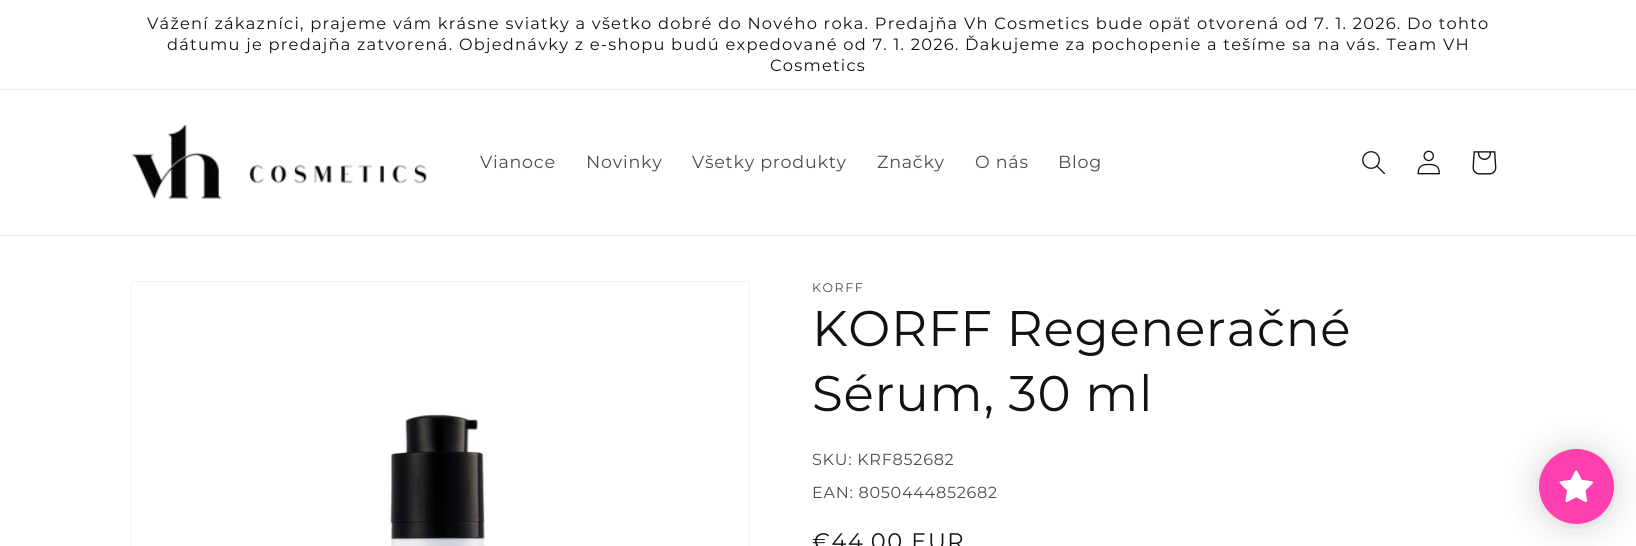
import math
import cairo

surface = cairo.ImageSurface(cairo.FORMAT_RGB24, 1636, 546)
c = cairo.Context(surface)
options = cairo.FontOptions()
options.set_hint_metrics(cairo.HINT_METRICS_OFF)
options.set_hint_style(cairo.HINT_STYLE_NONE)
c.set_font_options(options)
c.set_miter_limit(4)
def C(code):
 c.set_source_rgb(*(v / 255 for v in bytes.fromhex(code[-6:])))
def F(family, size, italic, bold):
 c.select_font_face(family, cairo.FONT_SLANT_ITALIC if italic else cairo.FONT_SLANT_NORMAL, cairo.FONT_WEIGHT_BOLD if bold else cairo.FONT_WEIGHT_NORMAL)
 c.set_font_size(size)
def L(x, y, s, letter, word):
 c.move_to(x, y)
 for ch in s:
  c.show_text(ch)
  c.rel_move_to(letter + word * (ch == ' '), 0)
def R(x, y, w, h):
 c.rectangle(x, y, w, h)
 c.fill()
def Q(x, y, w, h, r):
 c.new_sub_path()
 for i, (u, v) in enumerate([(x + w - r, y + h - r), (x + r, y + h - r), (x + r, y + r), (x + w - r, y + r)]):
  c.arc(u, v, r, i * math.pi / 2, (i + 1) * math.pi / 2)
 c.close_path()
def S(x, y, w, h, r, blur, alpha):
 c.push_group_with_content(cairo.CONTENT_ALPHA)
 c.set_operator(cairo.OPERATOR_SOURCE)
 for i in range(15, -16, -2):
  e = blur * i / 6
  if min(w, h) + 2 * e > 0:
   c.set_source_rgba(0, 0, 0, alpha * math.erfc((i - 1) / 8.5) / 2)
   Q(x - e, y - e, w + 2 * e, h + 2 * e, max(0, min(r + e + blur * .6, min(w, h) / 2 + e)))
   c.fill()
 c.mask(c.pop_group())
def I(path, x, y, w, h):
 c.save()
 c.set_source_surface(cairo.ImageSurface.create_from_png(path), x, y)
 c.rectangle(x, y, w, h)
 c.fill()
 c.restore()
C('ffffff')
c.paint()
C('ececec')
R(0,89,1636,1)
F('Montserrat',16.25,0,0)
C('121212')
L(147,29,'Vážení zákazníci, prajeme vám krásne sviatky a všetko dobré do Nového roka. Predajňa Vh Cosmetics bude opäť otvorená od 7. 1. 2026. Do tohto',1.25,0)
L(167,50,'dátumu je predajňa zatvorená. Objednávky z e-shopu budú expedované od 7. 1. 2026. Ďakujeme za pochopenie a tešíme sa na vás. Team VH',1.25,0)
L(770,71,'Cosmetics',1.25,0)
C('ececec')
R(0,235,1636,1)
I('1.png',131,124,296,75)
F('Montserrat',17.5,0,0)
C('4d4d4d')
L(480,168,'Vianoce',.75,0)
L(586,168,'Novinky',.75,0)
L(692,168,'Všetky produkty',.75,0)
L(877,168,'Značky',.75,0)
L(975,168,'O nás',.75,0)
L(1058,168,'Blog',.75,0)
I('2.png',1362,151,23,24)
I('3.png',1417,150,23,25)
I('4.png',1472,151,25,24)
c.rectangle(131.5,281.5,618,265)
C('f3f3f3')
c.set_line_width(1)
c.stroke()
I('5.png',388,414,98,132)
F('Montserrat',12.5,0,0)
C('4d4d4d')
L(812,292,'KORFF',1.6,0)
F('Montserrat',50,0,0)
C('121212')
L(812,346,'KORFF Regeneračné',.75,0)
L(812,411,'Sérum, 30 ml',.75,0)
F('Montserrat',16,0,0)
C('4d4d4d')
L(812,465,'SKU: KRF852682',.75,0)
L(812,498,'EAN: 8050444852682',.75,0)
F('Montserrat',22.5,0,0)
C('121212')
L(812,549,'€44.00 EUR',1.6,0)
C('000000')
S(1539,451,75,75,37.5,19,.15)
S(1539,450,75,75,37.5,4,.05)
C('fd3faf')
c.arc(1576.5,486.5,37.5,0,2 * math.pi)
c.fill()
I('6.png',1559,470,34,33)
surface.write_to_png('o.png')
